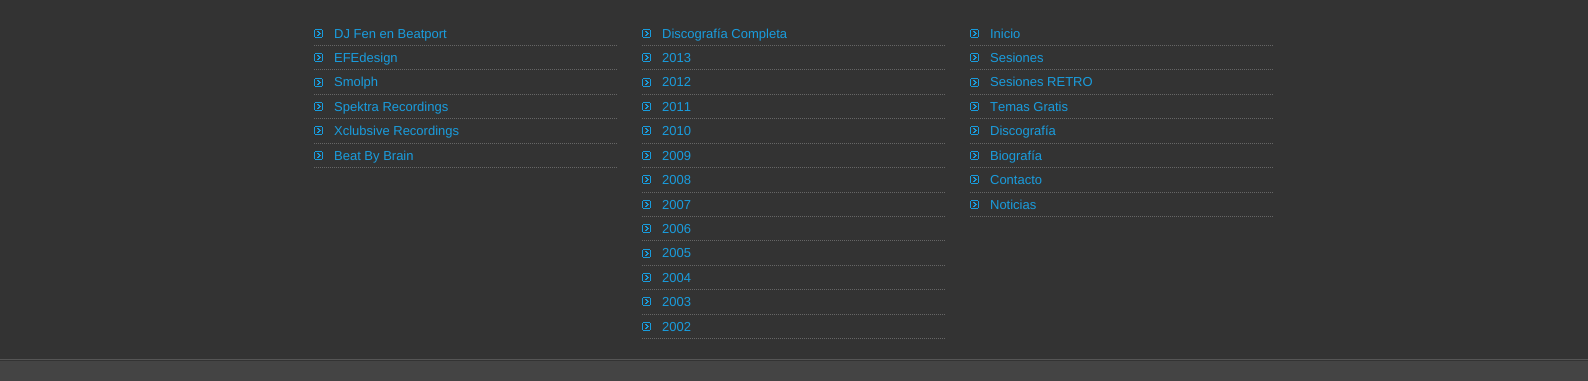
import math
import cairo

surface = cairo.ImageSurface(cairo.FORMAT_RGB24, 1588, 381)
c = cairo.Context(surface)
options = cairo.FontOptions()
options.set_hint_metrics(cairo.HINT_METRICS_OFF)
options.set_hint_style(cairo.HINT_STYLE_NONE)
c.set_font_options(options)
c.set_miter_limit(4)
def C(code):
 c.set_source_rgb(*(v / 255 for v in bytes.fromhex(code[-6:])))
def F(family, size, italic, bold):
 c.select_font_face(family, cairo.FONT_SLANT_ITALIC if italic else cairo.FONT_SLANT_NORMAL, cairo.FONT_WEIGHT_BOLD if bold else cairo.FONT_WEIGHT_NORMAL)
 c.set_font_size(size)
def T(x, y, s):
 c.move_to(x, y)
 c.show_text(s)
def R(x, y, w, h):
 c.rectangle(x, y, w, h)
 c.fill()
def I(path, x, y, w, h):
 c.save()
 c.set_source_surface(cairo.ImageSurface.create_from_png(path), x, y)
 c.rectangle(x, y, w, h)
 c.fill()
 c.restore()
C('444444')
c.paint()
C('333333')
R(0,0,1588,359)
C('555555')
R(0,359,1588,1)
c.new_path()
c.move_to(314,45.5)
c.line_to(618,45.5)
C('666666')
c.set_line_width(1)
c.set_dash([1,1])
c.stroke()
I('1.png',314,29,9,9)
F('Liberation Sans',13,0,0)
C('199cdd')
T(334,38,'DJ Fen en Beatport')
c.new_path()
c.move_to(314,69.5)
c.line_to(618,69.5)
C('666666')
c.stroke()
I('1.png',314,53,9,9)
C('199cdd')
T(334,62,'EFEdesign')
c.new_path()
c.move_to(314,94.5)
c.line_to(618,94.5)
C('666666')
c.stroke()
I('1.png',314,78,9,9)
C('199cdd')
T(334,86,'Smolph')
c.new_path()
c.move_to(314,118.5)
c.line_to(618,118.5)
C('666666')
c.stroke()
I('1.png',314,102,9,9)
C('199cdd')
T(334,111,'Spektra Recordings')
c.new_path()
c.move_to(314,143.5)
c.line_to(618,143.5)
C('666666')
c.stroke()
I('1.png',314,126,9,9)
C('199cdd')
T(334,135,'Xclubsive Recordings')
c.new_path()
c.move_to(314,167.5)
c.line_to(618,167.5)
C('666666')
c.stroke()
I('1.png',314,151,9,9)
C('199cdd')
T(334,160,'Beat By Brain')
c.new_path()
c.move_to(642,45.5)
c.line_to(946,45.5)
C('666666')
c.stroke()
I('1.png',642,29,9,9)
C('199cdd')
T(662,38,'Discografía Completa')
c.new_path()
c.move_to(642,69.5)
c.line_to(946,69.5)
C('666666')
c.stroke()
I('1.png',642,53,9,9)
C('199cdd')
T(662,62,'2013')
c.new_path()
c.move_to(642,94.5)
c.line_to(946,94.5)
C('666666')
c.stroke()
I('1.png',642,78,9,9)
C('199cdd')
T(662,86,'2012')
c.new_path()
c.move_to(642,118.5)
c.line_to(946,118.5)
C('666666')
c.stroke()
I('1.png',642,102,9,9)
C('199cdd')
T(662,111,'2011')
c.new_path()
c.move_to(642,143.5)
c.line_to(946,143.5)
C('666666')
c.stroke()
I('1.png',642,126,9,9)
C('199cdd')
T(662,135,'2010')
c.new_path()
c.move_to(642,167.5)
c.line_to(946,167.5)
C('666666')
c.stroke()
I('1.png',642,151,9,9)
C('199cdd')
T(662,160,'2009')
c.new_path()
c.move_to(642,192.5)
c.line_to(946,192.5)
C('666666')
c.stroke()
I('1.png',642,175,9,9)
C('199cdd')
T(662,184,'2008')
c.new_path()
c.move_to(642,216.5)
c.line_to(946,216.5)
C('666666')
c.stroke()
I('1.png',642,200,9,9)
C('199cdd')
T(662,209,'2007')
c.new_path()
c.move_to(642,240.5)
c.line_to(946,240.5)
C('666666')
c.stroke()
I('1.png',642,224,9,9)
C('199cdd')
T(662,233,'2006')
c.new_path()
c.move_to(642,265.5)
c.line_to(946,265.5)
C('666666')
c.stroke()
I('1.png',642,249,9,9)
C('199cdd')
T(662,257,'2005')
c.new_path()
c.move_to(642,289.5)
c.line_to(946,289.5)
C('666666')
c.stroke()
I('1.png',642,273,9,9)
C('199cdd')
T(662,282,'2004')
c.new_path()
c.move_to(642,314.5)
c.line_to(946,314.5)
C('666666')
c.stroke()
I('1.png',642,297,9,9)
C('199cdd')
T(662,306,'2003')
c.new_path()
c.move_to(642,338.5)
c.line_to(946,338.5)
C('666666')
c.stroke()
I('1.png',642,322,9,9)
C('199cdd')
T(662,331,'2002')
c.new_path()
c.move_to(970,45.5)
c.line_to(1274,45.5)
C('666666')
c.stroke()
I('1.png',970,29,9,9)
C('199cdd')
T(990,38,'Inicio')
c.new_path()
c.move_to(970,69.5)
c.line_to(1274,69.5)
C('666666')
c.stroke()
I('1.png',970,53,9,9)
C('199cdd')
T(990,62,'Sesiones')
c.new_path()
c.move_to(970,94.5)
c.line_to(1274,94.5)
C('666666')
c.stroke()
I('1.png',970,78,9,9)
C('199cdd')
T(990,86,'Sesiones RETRO')
c.new_path()
c.move_to(970,118.5)
c.line_to(1274,118.5)
C('666666')
c.stroke()
I('1.png',970,102,9,9)
C('199cdd')
T(990,111,'Temas Gratis')
c.new_path()
c.move_to(970,143.5)
c.line_to(1274,143.5)
C('666666')
c.stroke()
I('1.png',970,126,9,9)
C('199cdd')
T(990,135,'Discografía')
c.new_path()
c.move_to(970,167.5)
c.line_to(1274,167.5)
C('666666')
c.stroke()
I('1.png',970,151,9,9)
C('199cdd')
T(990,160,'Biografía')
c.new_path()
c.move_to(970,192.5)
c.line_to(1274,192.5)
C('666666')
c.stroke()
I('1.png',970,175,9,9)
C('199cdd')
T(990,184,'Contacto')
c.new_path()
c.move_to(970,216.5)
c.line_to(1274,216.5)
C('666666')
c.stroke()
I('1.png',970,200,9,9)
C('199cdd')
T(990,209,'Noticias')
C('333333')
R(0,360,1588,1)
surface.write_to_png('o.png')
